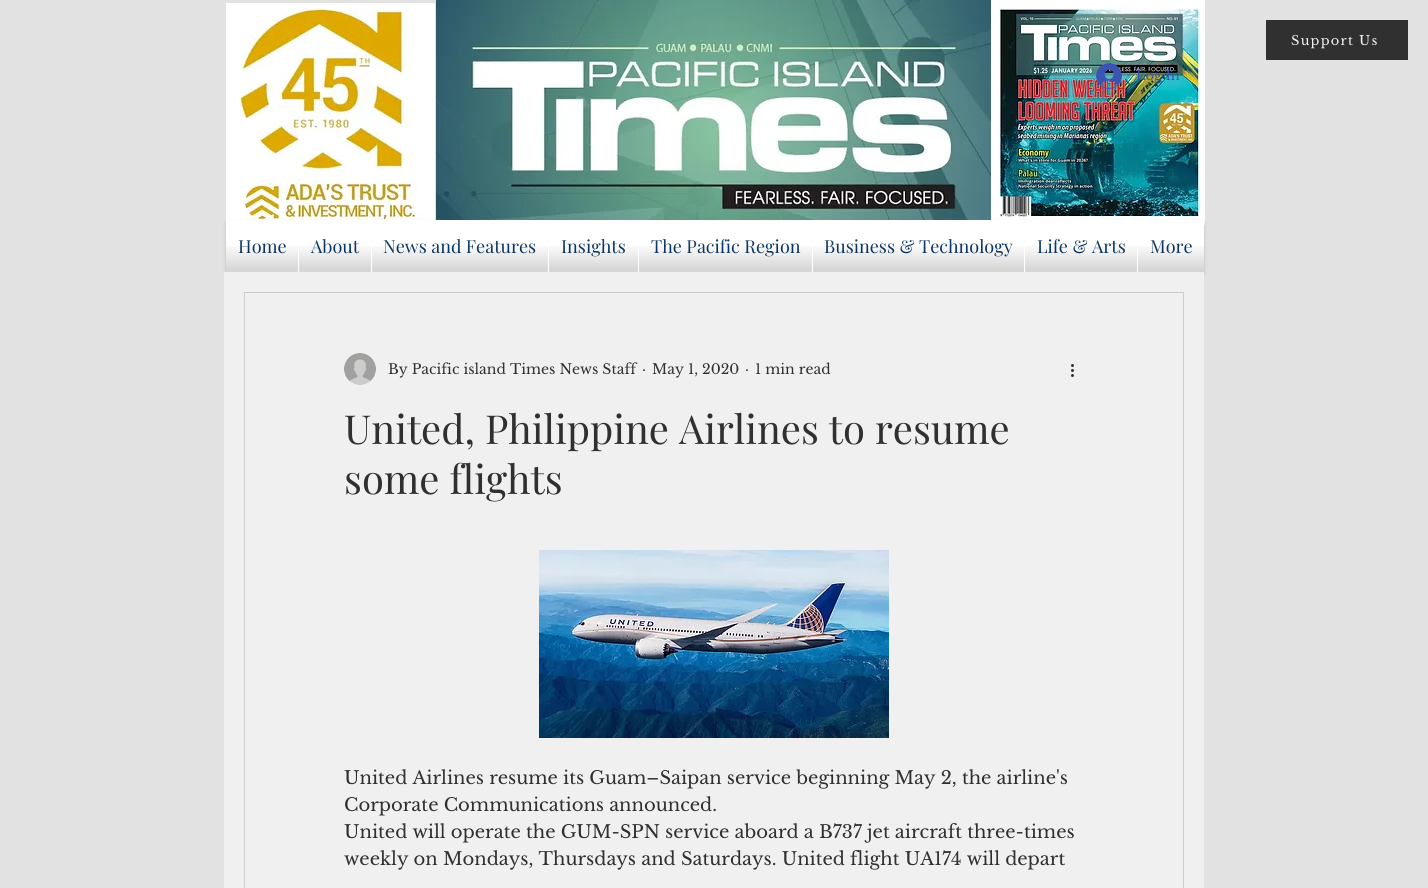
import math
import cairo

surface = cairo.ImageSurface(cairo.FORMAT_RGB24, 1428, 888)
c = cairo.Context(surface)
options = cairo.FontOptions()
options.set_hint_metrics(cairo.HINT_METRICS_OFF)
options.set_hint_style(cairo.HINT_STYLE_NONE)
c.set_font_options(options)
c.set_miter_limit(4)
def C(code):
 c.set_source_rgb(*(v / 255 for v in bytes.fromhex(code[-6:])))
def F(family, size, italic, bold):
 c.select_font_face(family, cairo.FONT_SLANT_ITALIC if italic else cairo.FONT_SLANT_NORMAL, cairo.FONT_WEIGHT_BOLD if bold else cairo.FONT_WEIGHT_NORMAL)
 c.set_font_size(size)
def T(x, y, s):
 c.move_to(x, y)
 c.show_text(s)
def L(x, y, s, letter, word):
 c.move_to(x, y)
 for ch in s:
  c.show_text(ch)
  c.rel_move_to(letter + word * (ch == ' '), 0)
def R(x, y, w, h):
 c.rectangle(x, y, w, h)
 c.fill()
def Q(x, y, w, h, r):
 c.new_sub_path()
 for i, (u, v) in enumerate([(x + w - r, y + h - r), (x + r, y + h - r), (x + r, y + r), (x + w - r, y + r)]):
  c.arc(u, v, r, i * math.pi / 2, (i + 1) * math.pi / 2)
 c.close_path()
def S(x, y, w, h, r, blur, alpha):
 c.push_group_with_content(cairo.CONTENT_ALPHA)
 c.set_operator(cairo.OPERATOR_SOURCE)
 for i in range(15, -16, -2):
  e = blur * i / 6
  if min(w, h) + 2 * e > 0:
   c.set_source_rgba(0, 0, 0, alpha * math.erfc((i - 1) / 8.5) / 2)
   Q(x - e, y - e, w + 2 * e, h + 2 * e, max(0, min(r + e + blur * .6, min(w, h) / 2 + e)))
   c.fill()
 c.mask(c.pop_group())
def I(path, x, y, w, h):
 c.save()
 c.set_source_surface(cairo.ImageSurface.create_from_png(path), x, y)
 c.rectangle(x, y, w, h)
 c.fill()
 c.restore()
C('e3e2e2')
c.paint()
C('303030')
R(1266,20,142,40)
F('Libre Baskerville',13,0,0)
C('f0f0f0')
L(1291,45,'Support Us',1.25,0)
I('1.png',226,3,209,217)
I('2.png',436,0,555,220)
I('3.png',991,0,214,225)
I('4.png',1096,63,26,26)
C('3a54b4')
T(1136,80,'Log In')
C('a29e9e')
S(226,222,978,52,0,1.5,.6)
C('ffffff')
R(226,220,978,52)
F('Playfair Display',18,0,0)
C('002e5d')
T(238,253,'Home')
I('5.png',238,240,48,13)
I('6.png',226,246,72,26)
T(311,253,'About')
I('7.png',311,239,47,14)
I('8.png',299,246,72,26)
T(383,253,'News and Features')
I('9.png',384,239,152,14)
I('10.png',372,246,176,26)
T(561,253,'Insights')
I('11.png',562,239,63,14)
I('12.png',549,246,89,26)
T(651,253,'The Pacific Region')
I('13.png',651,239,148,14)
I('14.png',639,246,173,26)
T(824,253,'Business & Technology')
I('15.png',825,239,187,14)
I('16.png',813,246,211,26)
T(1037,253,'Life & Arts')
I('17.png',1037,239,87,14)
I('18.png',1025,246,112,26)
T(1150,253,'More')
I('19.png',1150,240,42,13)
I('20.png',1138,246,66,26)
C('f0f0f0')
R(224,272,980,616)
c.rectangle(244.5,292.5,939,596)
C('cccccc')
c.set_line_width(1)
c.stroke()
I('21.png',344,353,32,32)
F('Libre Baskerville',14,0,0)
C('303030')
T(388,374,'By Pacific island Times News Staff')
T(642,374,'·')
T(652,374,'May 1, 2020')
T(745,374,'·')
T(755,374,'1 min read')
I('22.png',1071,364,3,13)
F('Playfair Display',40,0,0)
T(344,444,'United, Philippine Airlines to resume')
T(344,494,'some flights')
I('23.png',539,550,350,188)
F('Libre Baskerville',18,0,0)
T(344,784,'United Airlines resume its Guam–Saipan service beginning May 2, the airline\'s')
T(344,811,'Corporate Communications announced.')
T(344,838,'United will operate the GUM-SPN service aboard a B737 jet aircraft three-times')
T(344,865,'weekly on Mondays, Thursdays and Saturdays. United flight UA174 will depart')
surface.write_to_png('o.png')
